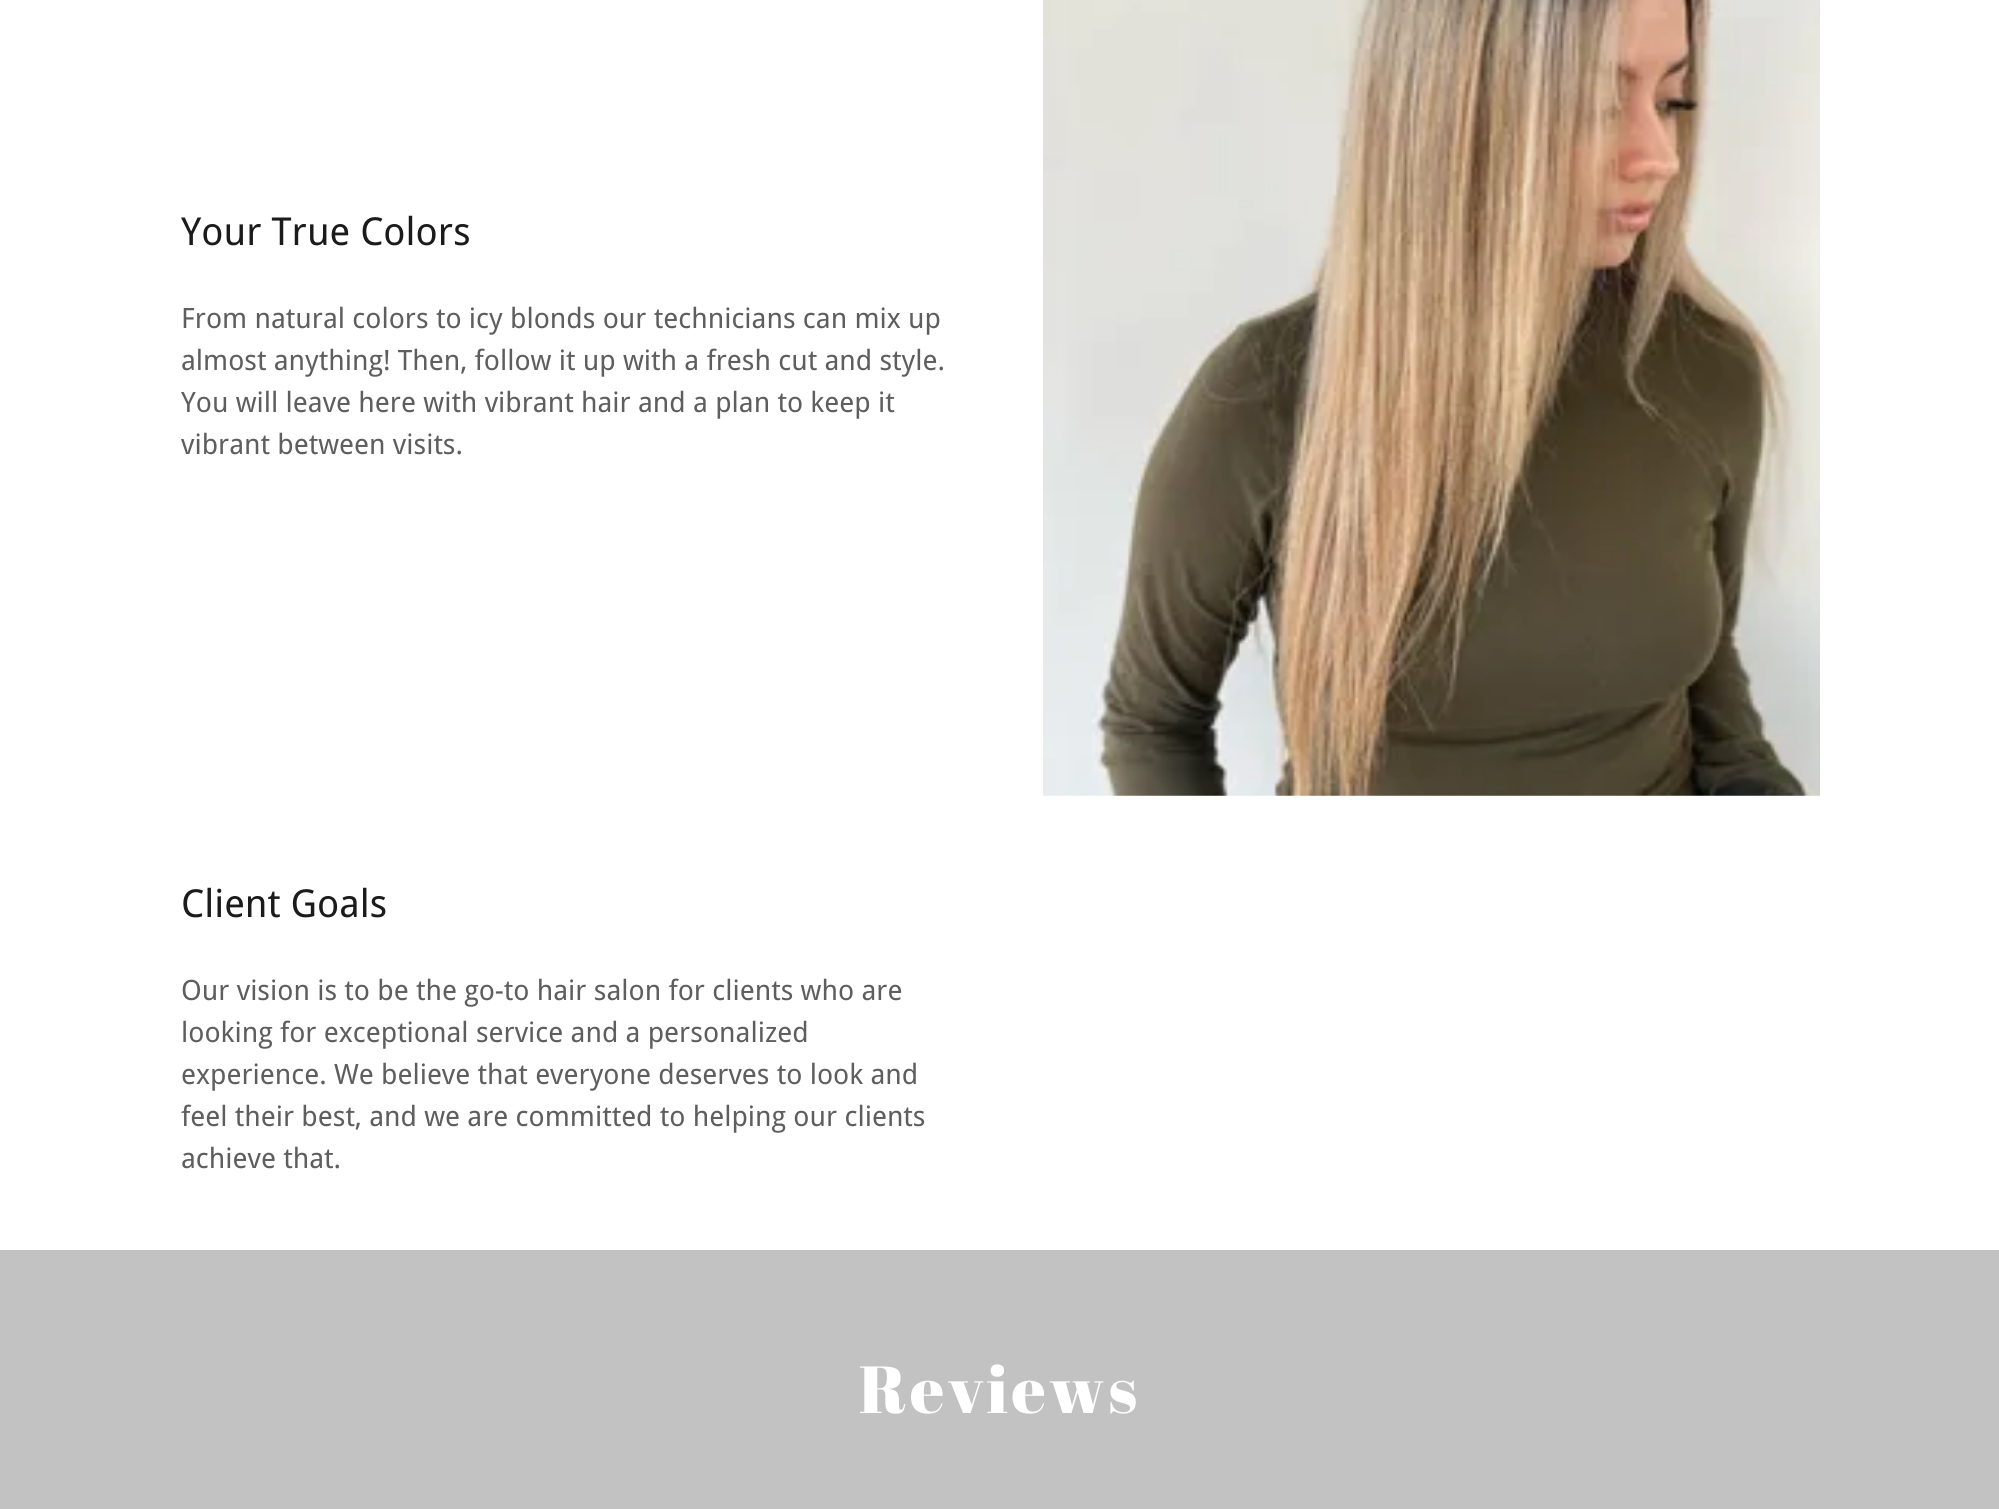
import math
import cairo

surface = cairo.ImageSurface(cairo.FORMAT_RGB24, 1999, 1509)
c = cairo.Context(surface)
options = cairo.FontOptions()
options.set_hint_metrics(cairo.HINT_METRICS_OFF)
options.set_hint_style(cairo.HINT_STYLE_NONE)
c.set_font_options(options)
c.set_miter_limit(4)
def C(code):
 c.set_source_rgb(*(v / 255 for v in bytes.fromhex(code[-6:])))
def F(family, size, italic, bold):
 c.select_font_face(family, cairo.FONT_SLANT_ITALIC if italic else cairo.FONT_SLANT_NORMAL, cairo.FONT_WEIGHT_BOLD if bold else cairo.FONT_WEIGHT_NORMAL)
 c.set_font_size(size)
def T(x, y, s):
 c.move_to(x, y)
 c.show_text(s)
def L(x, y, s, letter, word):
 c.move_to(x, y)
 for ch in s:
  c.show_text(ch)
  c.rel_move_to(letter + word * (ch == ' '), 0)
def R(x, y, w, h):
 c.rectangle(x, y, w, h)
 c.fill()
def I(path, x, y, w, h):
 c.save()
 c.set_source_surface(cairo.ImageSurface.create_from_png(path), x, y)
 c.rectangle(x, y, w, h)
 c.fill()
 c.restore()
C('ffffff')
c.paint()
F('Droid Sans',38.5,0,0)
C('1b1b1b')
T(181,245,'Your True Colors')
F('Droid Sans',28,0,0)
C('5e5e5e')
T(181,328,'From natural colors to icy blonds our technicians can mix up')
T(181,370,'almost anything! Then, follow it up with a fresh cut and style.')
T(181,412,'You will leave here with vibrant hair and a plan to keep it')
T(181,454,'vibrant between visits.')
I('1.png',1043,0,777,796)
F('Droid Sans',38.5,0,0)
C('1b1b1b')
T(181,917,'Client Goals')
F('Droid Sans',28,0,0)
C('5e5e5e')
T(181,1000,'Our vision is to be the go-to hair salon for clients who are')
T(181,1042,'looking for exceptional service and a personalized')
T(181,1084,'experience. We believe that everyone deserves to look and')
T(181,1126,'feel their best, and we are committed to helping our clients')
T(181,1168,'achieve that.')
C('c2c2c2')
R(0,1250,1999,259)
F('Abril Fatface',66.5,0,0)
C('ffffff')
L(859,1413,'Reviews',3.5,0)
surface.write_to_png('o.png')
